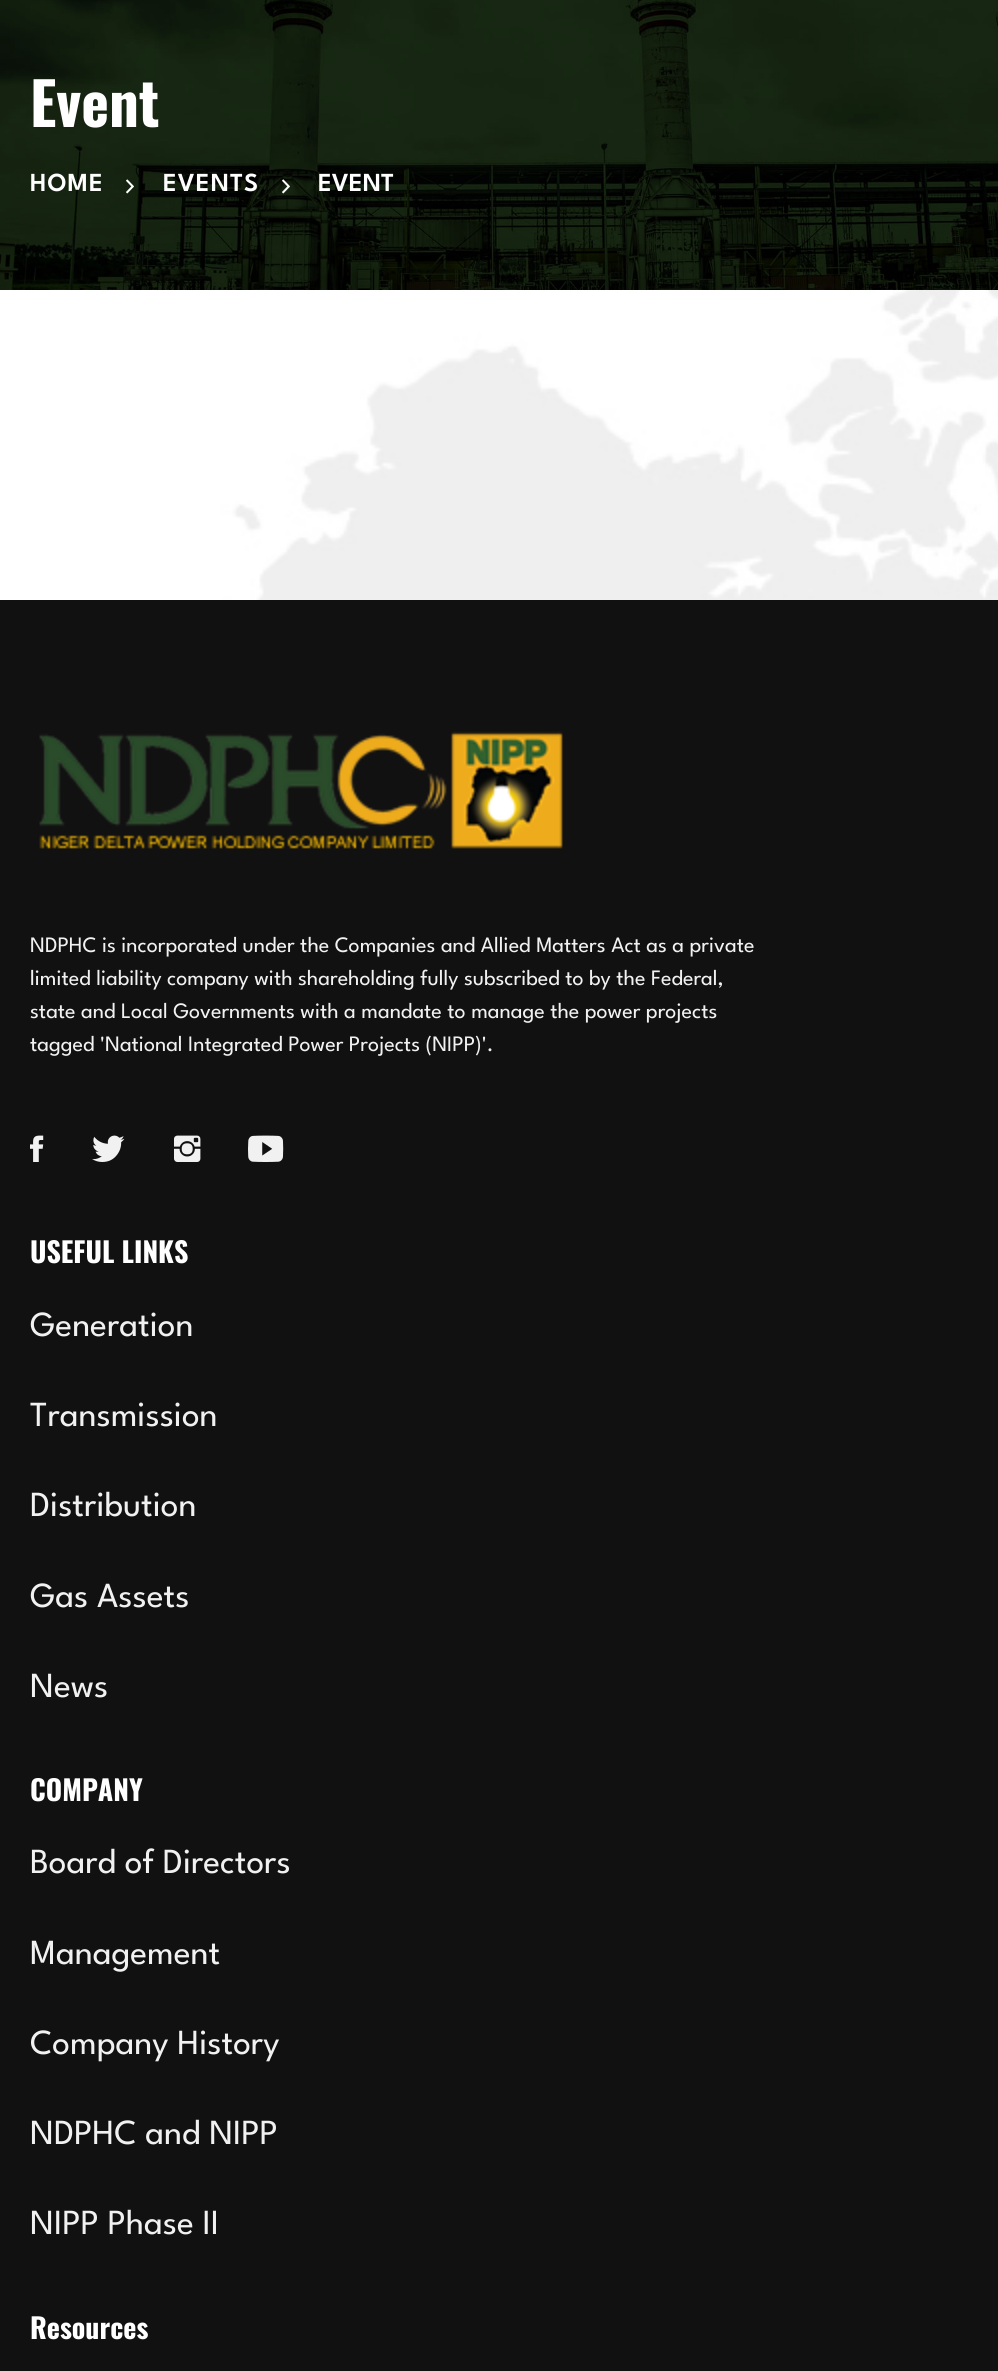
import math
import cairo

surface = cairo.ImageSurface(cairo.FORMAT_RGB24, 998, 2371)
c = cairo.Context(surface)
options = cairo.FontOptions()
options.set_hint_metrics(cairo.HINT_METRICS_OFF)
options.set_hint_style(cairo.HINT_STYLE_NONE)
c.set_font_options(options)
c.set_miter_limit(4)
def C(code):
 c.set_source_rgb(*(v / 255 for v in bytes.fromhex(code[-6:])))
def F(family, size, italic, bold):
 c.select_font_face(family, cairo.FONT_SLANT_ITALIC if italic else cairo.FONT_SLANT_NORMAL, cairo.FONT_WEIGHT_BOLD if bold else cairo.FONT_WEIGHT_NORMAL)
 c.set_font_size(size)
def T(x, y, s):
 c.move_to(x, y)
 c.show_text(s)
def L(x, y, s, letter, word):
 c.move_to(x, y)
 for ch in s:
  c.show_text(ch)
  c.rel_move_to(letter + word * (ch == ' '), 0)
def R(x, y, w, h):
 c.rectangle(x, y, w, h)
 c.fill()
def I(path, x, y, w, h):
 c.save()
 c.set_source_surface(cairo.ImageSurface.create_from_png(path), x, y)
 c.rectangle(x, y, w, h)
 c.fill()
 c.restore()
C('ffffff')
c.paint()
I('1.png',137,290,861,310)
I('2.png',0,0,998,290)
F('Oswald',59,0,1)
C('ffffff')
T(30,127,'Event')
F('League Spartan SemiBold',26,0,0)
L(30,191,'HOME',1,0)
I('3.png',126,179,8,15)
L(163,191,'EVENTS',1,0)
I('4.png',282,179,8,15)
T(318,191,'EVENT')
C('111111')
R(0,600,998,1771)
I('5.png',39,731,524,118)
F('League Spartan',22,0,0)
C('f1f1f1')
T(30,952,'NDPHC is incorporated under the Companies and Allied Matters Act as a private')
T(30,985,'limited liability company with shareholding fully subscribed to by the Federal,')
T(30,1018,'state and Local Governments with a mandate to manage the power projects')
T(30,1051,'tagged \'National Integrated Power Projects (NIPP)\'.')
I('6.png',30,1135,14,27)
I('7.png',92,1135,33,27)
I('8.png',174,1135,27,27)
I('9.png',248,1135,36,27)
F('Oswald',28,0,1)
C('ffffff')
T(30,1263,'USEFUL LINKS')
F('League Spartan',35.25,0,0)
C('f1f1f1')
T(30,1336,'Generation')
T(30,1426,'Transmission')
T(30,1516,'Distribution')
T(30,1607,'Gas Assets')
T(30,1697,'News')
F('Oswald',28,0,1)
C('ffffff')
T(30,1801,'COMPANY')
F('League Spartan',35.25,0,0)
C('f1f1f1')
T(30,1873,'Board of Directors')
T(30,1964,'Management')
T(30,2054,'Company History')
T(30,2144,'NDPHC and NIPP')
T(30,2234,'NIPP Phase II')
F('Oswald',28,0,1)
C('ffffff')
T(30,2339,'Resources')
surface.write_to_png('o.png')
